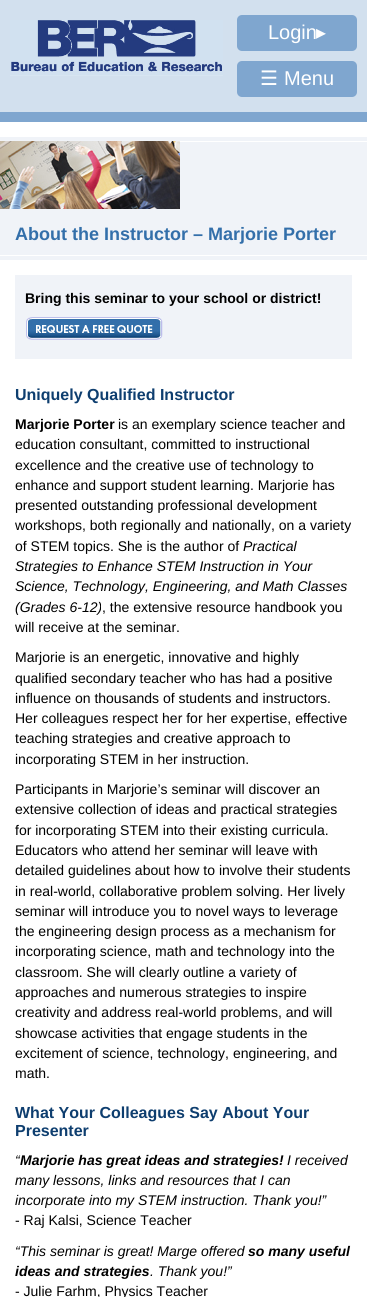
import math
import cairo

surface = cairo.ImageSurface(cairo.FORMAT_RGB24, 367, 1297)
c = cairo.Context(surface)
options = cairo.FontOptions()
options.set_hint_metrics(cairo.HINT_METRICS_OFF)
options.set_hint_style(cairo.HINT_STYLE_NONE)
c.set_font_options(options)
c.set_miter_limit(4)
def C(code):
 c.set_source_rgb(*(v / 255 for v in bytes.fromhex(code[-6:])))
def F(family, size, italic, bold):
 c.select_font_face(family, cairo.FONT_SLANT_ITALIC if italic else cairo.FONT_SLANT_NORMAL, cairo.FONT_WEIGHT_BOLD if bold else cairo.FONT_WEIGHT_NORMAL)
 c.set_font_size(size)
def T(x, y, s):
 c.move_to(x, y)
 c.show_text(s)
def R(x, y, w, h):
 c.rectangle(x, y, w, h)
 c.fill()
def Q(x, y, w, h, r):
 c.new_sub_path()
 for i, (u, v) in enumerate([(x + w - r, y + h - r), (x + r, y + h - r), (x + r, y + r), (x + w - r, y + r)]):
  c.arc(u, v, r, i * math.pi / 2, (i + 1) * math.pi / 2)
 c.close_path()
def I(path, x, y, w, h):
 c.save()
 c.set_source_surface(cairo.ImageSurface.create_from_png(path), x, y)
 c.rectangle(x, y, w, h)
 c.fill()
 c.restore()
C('d2e0ee')
c.paint()
I('1.png',10,20,213,56)
C('7fa6cf')
Q(237,15,120,36,5)
c.fill()
F('Liberation Sans',20,0,0)
C('ffffff')
T(268,39,'Login')
F('DejaVu Sans',20,0,0)
T(316,39,'▸')
C('7fa6cf')
Q(237,61,120,36,5)
c.fill()
C('ffffff')
T(260,85,'☰')
F('Liberation Sans',20,0,0)
T(284,85,'Menu')
C('7fa6cf')
R(0,112,367,10)
C('ffffff')
R(0,122,367,1175)
C('f0f3f8')
R(0,137,367,4)
R(0,142,367,113)
I('2.png',0,141,180,68)
F('Liberation Sans',18,0,1)
C('336faa')
T(15,240,'About the Instructor – Marjorie Porter')
C('f0f3f8')
R(0,256,367,4)
R(15,275,337,84)
F('Liberation Sans',14,0,1)
C('000000')
T(25,303,'Bring this seminar to your school or district!')
I('3.png',26,317,137,23)
F('Liberation Sans',16,0,1)
C('0e3e6f')
T(15,400,'Uniquely Qualified Instructor')
F('Liberation Sans',14,0,1)
C('000000')
T(15,429,'Marjorie Porter')
F('Liberation Sans',14,0,0)
T(118,429,'is an exemplary science teacher and')
T(15,449,'education consultant, committed to instructional')
T(15,470,'excellence and the creative use of technology to')
T(15,490,'enhance and support student learning. Marjorie has')
T(15,510,'presented outstanding professional development')
T(15,530,'workshops, both regionally and nationally, on a variety')
T(15,551,'of STEM topics. She is the author of')
F('Liberation Sans',14,1,0)
T(243,551,'Practical')
T(15,571,'Strategies to Enhance STEM Instruction in Your')
T(15,591,'Science, Technology, Engineering, and Math Classes')
T(15,612,'(Grades 6-12)')
F('Liberation Sans',14,0,0)
T(102,612,', the extensive resource handbook you')
T(15,632,'will receive at the seminar.')
T(15,662,'Marjorie is an energetic, innovative and highly')
T(15,683,'qualified secondary teacher who has had a positive')
T(15,703,'influence on thousands of students and instructors.')
T(15,723,'Her colleagues respect her for her expertise, effective')
T(15,743,'teaching strategies and creative approach to')
T(15,764,'incorporating STEM in her instruction.')
T(15,794,'Participants in Marjorie’s seminar will discover an')
T(15,814,'extensive collection of ideas and practical strategies')
T(15,835,'for incorporating STEM into their existing curricula.')
T(15,855,'Educators who attend her seminar will leave with')
T(15,875,'detailed guidelines about how to involve their students')
T(15,896,'in real-world, collaborative problem solving. Her lively')
T(15,916,'seminar will introduce you to novel ways to leverage')
T(15,936,'the engineering design process as a mechanism for')
T(15,956,'incorporating science, math and technology into the')
T(15,977,'classroom. She will clearly outline a variety of')
T(15,997,'approaches and numerous strategies to inspire')
T(15,1017,'creativity and address real-world problems, and will')
T(15,1038,'showcase activities that engage students in the')
T(15,1058,'excitement of science, technology, engineering, and')
T(15,1078,'math.')
F('Liberation Sans',16,0,1)
C('0e3e6f')
T(15,1118,'What Your Colleagues Say About Your')
T(15,1136,'Presenter')
F('Liberation Sans',14,1,0)
C('000000')
T(15,1165,'“')
F('Liberation Sans',14,1,1)
T(20,1165,'Marjorie has great ideas and strategies!')
F('Liberation Sans',14,1,0)
T(287,1165,'I received')
T(15,1185,'many lessons, links and resources that I can')
T(15,1205,'incorporate into my STEM instruction. Thank you!”')
F('Liberation Sans',14,0,0)
T(15,1225,'- Raj Kalsi, Science Teacher')
F('Liberation Sans',14,1,0)
T(15,1256,'“This seminar is great! Marge offered')
F('Liberation Sans',14,1,1)
T(248,1256,'so many useful')
T(15,1276,'ideas and strategies')
F('Liberation Sans',14,1,0)
T(150,1276,'. Thank you!”')
F('Liberation Sans',14,0,0)
T(15,1296,'- Julie Farhm, Physics Teacher')
surface.write_to_png('o.png')
